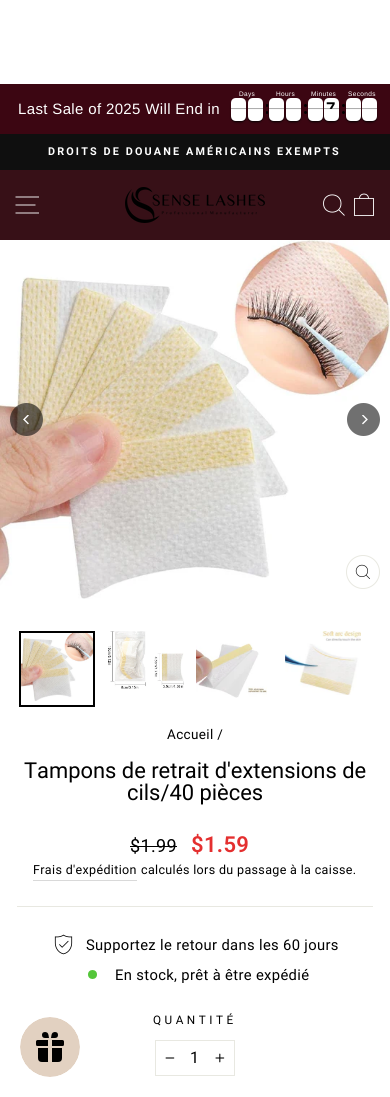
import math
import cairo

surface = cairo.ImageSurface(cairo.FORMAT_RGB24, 390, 1097)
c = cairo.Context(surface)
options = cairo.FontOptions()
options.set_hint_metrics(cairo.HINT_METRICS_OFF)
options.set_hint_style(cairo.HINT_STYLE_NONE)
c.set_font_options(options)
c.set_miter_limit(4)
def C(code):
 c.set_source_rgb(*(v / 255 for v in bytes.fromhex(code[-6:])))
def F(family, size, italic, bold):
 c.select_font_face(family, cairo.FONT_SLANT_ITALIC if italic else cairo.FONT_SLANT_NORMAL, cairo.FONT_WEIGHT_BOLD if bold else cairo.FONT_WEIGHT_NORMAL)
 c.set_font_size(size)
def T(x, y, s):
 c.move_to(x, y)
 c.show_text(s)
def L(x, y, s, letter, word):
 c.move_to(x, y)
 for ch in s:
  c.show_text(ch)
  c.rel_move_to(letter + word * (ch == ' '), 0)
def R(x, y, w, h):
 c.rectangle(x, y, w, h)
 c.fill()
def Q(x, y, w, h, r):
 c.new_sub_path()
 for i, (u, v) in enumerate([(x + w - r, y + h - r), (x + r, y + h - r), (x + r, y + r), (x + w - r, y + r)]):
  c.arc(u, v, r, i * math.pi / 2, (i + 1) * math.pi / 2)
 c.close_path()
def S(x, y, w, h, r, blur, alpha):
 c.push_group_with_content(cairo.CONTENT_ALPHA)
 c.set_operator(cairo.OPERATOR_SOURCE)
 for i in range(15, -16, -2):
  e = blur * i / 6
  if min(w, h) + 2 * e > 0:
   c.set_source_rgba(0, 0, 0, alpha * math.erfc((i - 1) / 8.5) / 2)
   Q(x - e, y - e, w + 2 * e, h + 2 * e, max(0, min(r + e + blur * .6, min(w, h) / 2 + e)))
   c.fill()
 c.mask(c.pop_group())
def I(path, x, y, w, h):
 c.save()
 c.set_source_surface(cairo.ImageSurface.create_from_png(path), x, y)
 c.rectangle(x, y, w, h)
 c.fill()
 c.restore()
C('ffffff')
c.paint()
C('3c0612')
R(0,84,390,50)
F('Liberation Sans',15,0,0)
C('ffffff')
L(18,114,'Last Sale of 2025 Will End in',.35,0)
C('000000')
S(231,100,15,23,5,1.5,.24)
S(248,100,15,23,5,1.5,.24)
F('Liberation Sans',6.5,0,0)
C('ffffff')
L(239,96,'Days',.35,0)
C('000000')
S(231,110,15,12,5,.5,.4)
S(248,110,15,12,5,.5,.4)
C('ffffff')
c.new_path()
c.move_to(236,98)
c.line_to(241,98)
c.curve_to(244,98,246,100,246,103)
c.line_to(246,109)
c.line_to(231,109)
c.line_to(231,103)
c.curve_to(231,100,233,98,236,98)
c.close_path()
c.fill()
c.set_source_rgba(0.2,0.2,0.2,0.4)
R(231,108,15,1)
C('000000')
S(231,110,15,12,5,.5,.4)
C('ffffff')
c.new_path()
c.move_to(231,109)
c.line_to(246,109)
c.line_to(246,116)
c.curve_to(246,119,244,121,241,121)
c.line_to(236,121)
c.curve_to(233,121,231,119,231,116)
c.close_path()
c.fill()
c.set_source_rgba(0.8,0.8,0.8,0.1)
R(231,109,15,1)
C('ffffff')
c.new_path()
c.move_to(253,98)
c.line_to(258,98)
c.curve_to(261,98,263,100,263,103)
c.line_to(263,109)
c.line_to(248,109)
c.line_to(248,103)
c.curve_to(248,100,250,98,253,98)
c.close_path()
c.fill()
c.set_source_rgba(0.2,0.2,0.2,0.4)
R(248,108,15,1)
C('000000')
S(248,110,15,12,5,.5,.4)
C('ffffff')
c.new_path()
c.move_to(248,109)
c.line_to(263,109)
c.line_to(263,116)
c.curve_to(263,119,261,121,258,121)
c.line_to(253,121)
c.curve_to(250,121,248,119,248,116)
c.close_path()
c.fill()
c.set_source_rgba(0.8,0.8,0.8,0.1)
R(248,109,15,1)
C('000000')
Q(266,104,2,3,1)
c.fill()
Q(266,111,2,3,1)
c.fill()
C('000000')
S(269,100,15,23,5,1.5,.24)
S(286,100,15,23,5,1.5,.24)
C('ffffff')
L(276,96,'Hours',.35,0)
C('000000')
S(269,110,15,12,5,.5,.4)
S(286,110,15,12,5,.5,.4)
C('ffffff')
c.new_path()
c.move_to(274,98)
c.line_to(279,98)
c.curve_to(282,98,284,100,284,103)
c.line_to(284,109)
c.line_to(269,109)
c.line_to(269,103)
c.curve_to(269,100,271,98,274,98)
c.close_path()
c.fill()
c.set_source_rgba(0.2,0.2,0.2,0.4)
R(269,108,15,1)
C('000000')
S(269,110,15,12,5,.5,.4)
C('ffffff')
c.new_path()
c.move_to(269,109)
c.line_to(284,109)
c.line_to(284,116)
c.curve_to(284,119,282,121,279,121)
c.line_to(274,121)
c.curve_to(271,121,269,119,269,116)
c.close_path()
c.fill()
c.set_source_rgba(0.8,0.8,0.8,0.1)
R(269,109,15,1)
C('ffffff')
c.new_path()
c.move_to(291,98)
c.line_to(296,98)
c.curve_to(299,98,301,100,301,103)
c.line_to(301,109)
c.line_to(286,109)
c.line_to(286,103)
c.curve_to(286,100,288,98,291,98)
c.close_path()
c.fill()
c.set_source_rgba(0.2,0.2,0.2,0.4)
R(286,108,15,1)
C('000000')
S(286,110,15,12,5,.5,.4)
C('ffffff')
c.new_path()
c.move_to(286,109)
c.line_to(301,109)
c.line_to(301,116)
c.curve_to(301,119,299,121,296,121)
c.line_to(291,121)
c.curve_to(288,121,286,119,286,116)
c.close_path()
c.fill()
c.set_source_rgba(0.8,0.8,0.8,0.1)
R(286,109,15,1)
C('000000')
c.arc(305.5,105.5,1.5,0,2 * math.pi)
c.fill()
c.arc(305.5,112.5,1.5,0,2 * math.pi)
c.fill()
C('000000')
S(308,100,15,23,5,1.5,.24)
S(324,100,15,23,5,1.5,.24)
C('ffffff')
L(311,96,'Minutes',.35,0)
C('000000')
S(308,110,15,12,5,.5,.4)
S(324,110,15,12,5,.5,.4)
C('ffffff')
c.new_path()
c.move_to(313,98)
c.line_to(318,98)
c.curve_to(321,98,323,100,323,103)
c.line_to(323,109)
c.line_to(308,109)
c.line_to(308,103)
c.curve_to(308,100,310,98,313,98)
c.close_path()
c.fill()
c.set_source_rgba(0.2,0.2,0.2,0.4)
R(308,108,15,1)
C('000000')
S(308,110,15,12,5,.5,.4)
C('ffffff')
c.new_path()
c.move_to(308,109)
c.line_to(323,109)
c.line_to(323,116)
c.curve_to(323,119,321,121,318,121)
c.line_to(313,121)
c.curve_to(310,121,308,119,308,116)
c.close_path()
c.fill()
c.set_source_rgba(0.8,0.8,0.8,0.1)
R(308,109,15,1)
C('ffffff')
c.new_path()
c.move_to(329,98)
c.line_to(334,98)
c.curve_to(337,98,339,100,339,103)
c.line_to(339,109)
c.line_to(324,109)
c.line_to(324,103)
c.curve_to(324,100,326,98,329,98)
c.close_path()
c.fill()
F('Liberation Sans',17,0,1)
C('000000')
L(326,114,'7',.35,0)
c.set_source_rgba(0.2,0.2,0.2,0.4)
R(324,108,15,1)
C('000000')
S(324,110,15,12,5,.5,.4)
C('ffffff')
c.new_path()
c.move_to(324,109)
c.line_to(339,109)
c.line_to(339,116)
c.curve_to(339,119,337,121,334,121)
c.line_to(329,121)
c.curve_to(326,121,324,119,324,116)
c.close_path()
c.fill()
c.set_source_rgba(0.8,0.8,0.8,0.1)
R(324,109,15,1)
C('000000')
c.arc(343.5,105.5,1.5,0,2 * math.pi)
c.fill()
c.arc(343.5,112.5,1.5,0,2 * math.pi)
c.fill()
C('000000')
S(346,100,15,23,5,1.5,.24)
S(362,100,15,23,5,1.5,.24)
F('Liberation Sans',6.5,0,0)
C('ffffff')
L(348,96,'Seconds',.35,0)
C('000000')
S(346,110,15,12,5,.5,.4)
S(362,110,15,12,5,.5,.4)
C('ffffff')
c.new_path()
c.move_to(351,98)
c.line_to(356,98)
c.curve_to(359,98,361,100,361,103)
c.line_to(361,109)
c.line_to(346,109)
c.line_to(346,103)
c.curve_to(346,100,348,98,351,98)
c.close_path()
c.fill()
c.set_source_rgba(0.2,0.2,0.2,0.4)
R(346,108,15,1)
C('000000')
S(346,110,15,12,5,.5,.4)
C('ffffff')
c.new_path()
c.move_to(346,109)
c.line_to(361,109)
c.line_to(361,116)
c.curve_to(361,119,359,121,356,121)
c.line_to(351,121)
c.curve_to(348,121,346,119,346,116)
c.close_path()
c.fill()
c.set_source_rgba(0.8,0.8,0.8,0.1)
R(346,109,15,1)
C('ffffff')
c.new_path()
c.move_to(367,98)
c.line_to(372,98)
c.curve_to(375,98,377,100,377,103)
c.line_to(377,109)
c.line_to(362,109)
c.line_to(362,103)
c.curve_to(362,100,364,98,367,98)
c.close_path()
c.fill()
c.set_source_rgba(0.2,0.2,0.2,0.4)
R(362,108,15,1)
C('000000')
S(362,110,15,12,5,.5,.4)
C('ffffff')
c.new_path()
c.move_to(362,109)
c.line_to(377,109)
c.line_to(377,116)
c.curve_to(377,119,375,121,372,121)
c.line_to(367,121)
c.curve_to(364,121,362,119,362,116)
c.close_path()
c.fill()
c.set_source_rgba(0.8,0.8,0.8,0.1)
R(362,109,15,1)
C('0f0f0f')
R(0,134,390,36)
F('Roboto',10.8,0,1)
C('ffffff')
L(48,155,'DROITS DE DOUANE AMÉRICAINS EXEMPTS',2.15,0)
C('371017')
R(0,170,390,70)
c.new_path()
c.move_to(15.5,197)
c.line_to(39,197)
c.move_to(15.5,205)
c.line_to(35.5,205)
c.move_to(15.5,213)
c.line_to(39,213)
C('ffffff')
c.set_line_width(.9)
c.stroke()
I('1.png',125,187,140,36)
c.new_path()
c.move_to(341,203.5)
c.curve_to(341,215,323.5,215,323.5,203.5)
c.curve_to(323.5,192,341,192,341,203.5)
c.close_path()
c.move_to(344.5,215.5)
c.line_to(338.5,209.5)
c.move_to(354.5,198.5)
c.line_to(373.5,198.5)
c.line_to(373.5,215.5)
c.line_to(354.5,215.5)
c.close_path()
c.move_to(359.5,198.5)
c.curve_to(359.5,192.5,368.5,192.5,368.5,198.5)
c.stroke()
I('2.png',0,240,390,359)
c.arc(363,572,16.5,0,2 * math.pi)
C('e8e8e1')
c.set_line_width(1)
c.stroke()
I('3.png',355,564,15,15)
c.set_source_rgba(0,0,0,0.56)
c.arc(26.5,419.5,16.5,0,2 * math.pi)
c.fill()
I('4.png',23,415,6,10)
C('707070')
c.arc(363.5,419.5,16.5,0,2 * math.pi)
c.fill()
I('5.png',362,415,6,10)
I('6.png',21,633,72,68)
c.rectangle(20,632,74,74)
C('000000')
c.set_line_width(2)
c.stroke()
I('7.png',108,631,76,58)
I('8.png',196,643,71,55)
I('9.png',285,631,76,64)
F('Roboto',13.5,0,0)
L(167,739,'Accueil /',.35,0)
F('Roboto',21.9,0,0)
T(24,778,'Tampons de retrait d\'extensions de')
T(127,800,'cils/40 pièces')
F('Roboto',18,0,0)
L(130,852,'$1.99',.35,0)
R(130,846,47,1)
F('Roboto SemiBold',22,0,0)
C('e42f2f')
L(191,852,'$1.59',.35,0)
C('d9d9d9')
R(33,880,104,1)
F('Roboto',12.5,0,0)
C('000000')
L(33,874,'Frais d\'expédition',.35,0)
L(141,874,'calculés lors du passage à la caisse.',.35,0)
C('e8e8e1')
R(17,906,356,1)
I('10.png',54,934,19,21)
F('Roboto',14.75,0,0)
C('000000')
L(86,950,'Supportez le retour dans les 60 jours',.35,0)
C('54c63a')
c.new_path()
c.arc(92.5,974.5,4.5,0,2 * math.pi)
c.fill()
C('000000')
L(115,980,'En stock, prêt à être expédié',.35,0)
F('Roboto',11.75,0,0)
L(153,1024,'QUANTITÉ',3.5,0)
c.rectangle(155.5,1040.5,79,35)
C('e8e8e1')
c.set_line_width(1)
c.stroke()
I('11.png',165,1057,10,2)
F('Roboto',16,0,0)
C('000000')
T(190,1063,'1')
I('12.png',215,1053,10,10)
I('13.png',20,1017,60,60)
surface.write_to_png('o.png')
